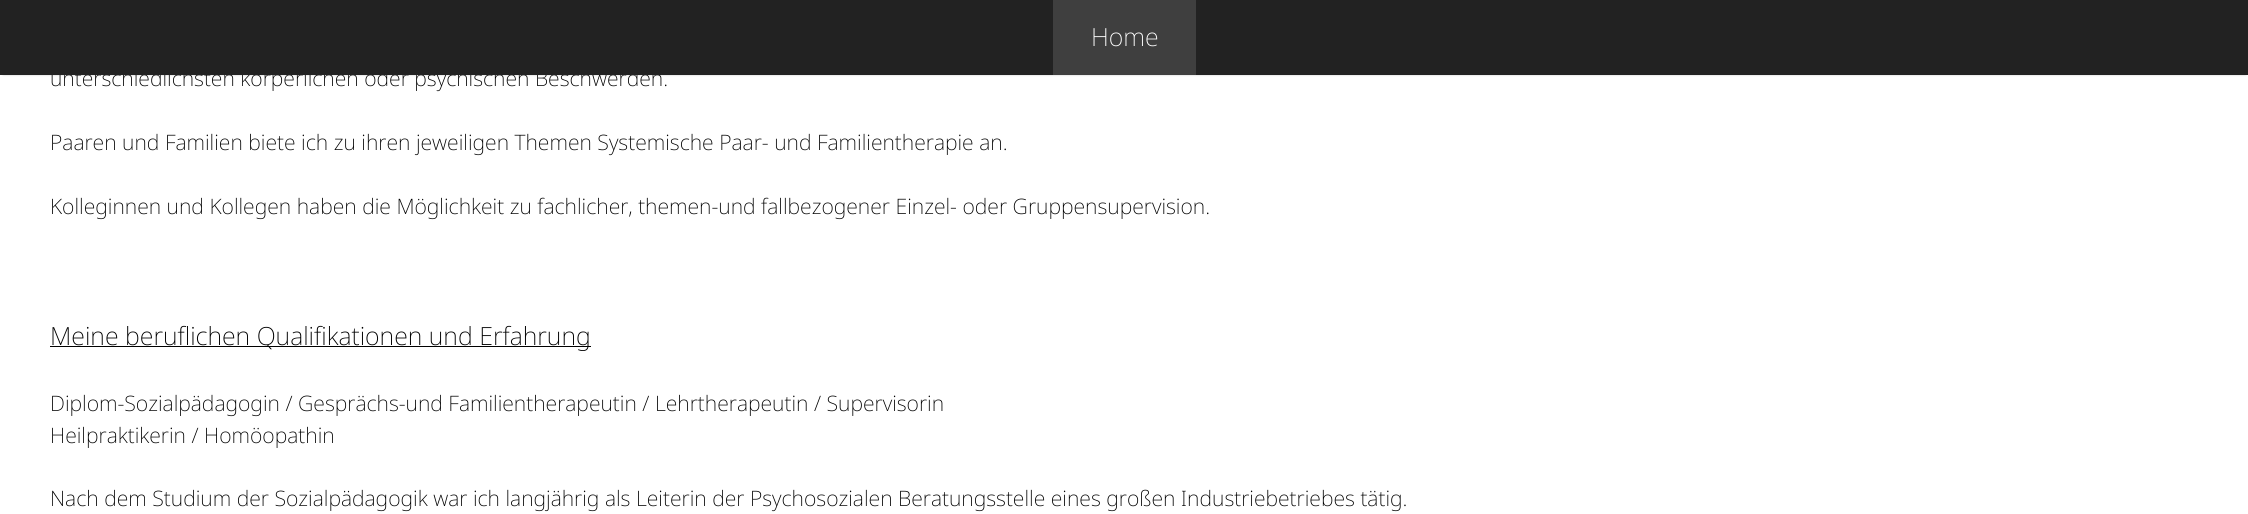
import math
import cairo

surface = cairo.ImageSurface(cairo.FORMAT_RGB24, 2248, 514)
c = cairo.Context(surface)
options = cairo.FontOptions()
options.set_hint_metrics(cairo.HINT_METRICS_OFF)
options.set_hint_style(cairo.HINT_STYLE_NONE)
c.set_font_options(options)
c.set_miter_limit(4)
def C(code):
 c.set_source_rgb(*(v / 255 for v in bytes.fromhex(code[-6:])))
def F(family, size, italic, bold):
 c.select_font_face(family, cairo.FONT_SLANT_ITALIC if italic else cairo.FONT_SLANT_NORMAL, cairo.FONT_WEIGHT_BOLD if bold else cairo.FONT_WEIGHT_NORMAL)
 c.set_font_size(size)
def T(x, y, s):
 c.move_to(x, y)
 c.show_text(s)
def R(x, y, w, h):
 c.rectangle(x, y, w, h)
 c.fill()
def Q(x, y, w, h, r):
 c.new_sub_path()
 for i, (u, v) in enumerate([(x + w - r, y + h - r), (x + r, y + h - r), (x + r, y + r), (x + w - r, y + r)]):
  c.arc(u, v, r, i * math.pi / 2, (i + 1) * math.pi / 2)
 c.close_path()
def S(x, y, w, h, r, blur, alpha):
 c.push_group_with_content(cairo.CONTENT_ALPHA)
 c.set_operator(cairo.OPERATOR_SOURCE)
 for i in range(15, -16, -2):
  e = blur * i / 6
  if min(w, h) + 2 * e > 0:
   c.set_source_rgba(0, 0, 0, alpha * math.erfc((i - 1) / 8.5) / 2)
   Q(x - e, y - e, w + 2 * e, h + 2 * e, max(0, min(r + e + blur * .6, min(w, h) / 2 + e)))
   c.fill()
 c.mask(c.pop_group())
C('ffffff')
c.paint()
C('000000')
S(3,5,2243,70,0,1,.2)
F('Noto Sans ExtraLight',21.25,0,0)
C('000000')
T(50,86,'unterschiedlichsten körperlichen oder psychischen Beschwerden.')
C('222222')
R(0,0,2248,75)
C('3f3f3f')
R(1053,0,143,75)
F('Noto Sans ExtraLight',25,0,0)
C('ffffff')
T(1091,46,'Home')
F('Noto Sans ExtraLight',21.25,0,0)
C('000000')
T(50,150,'Paaren und Familien biete ich zu ihren jeweiligen Themen Systemische Paar- und Familientherapie an.')
T(50,214,'Kolleginnen und Kollegen haben die Möglichkeit zu fachlicher, themen-und fallbezogener Einzel- oder Gruppensupervision.')
R(50,346,541,1)
F('Noto Sans ExtraLight',25,0,0)
T(50,345,'Meine beruflichen Qualifikationen und Erfahrung')
F('Noto Sans ExtraLight',21.25,0,0)
T(50,411,'Diplom-Sozialpädagogin / Gesprächs-und Familientherapeutin / Lehrtherapeutin / Supervisorin')
T(50,443,'Heilpraktikerin / Homöopathin')
T(50,506,'Nach dem Studium der Sozialpädagogik war ich langjährig als Leiterin der Psychosozialen Beratungsstelle eines großen Industriebetriebes tätig.')
surface.write_to_png('o.png')
